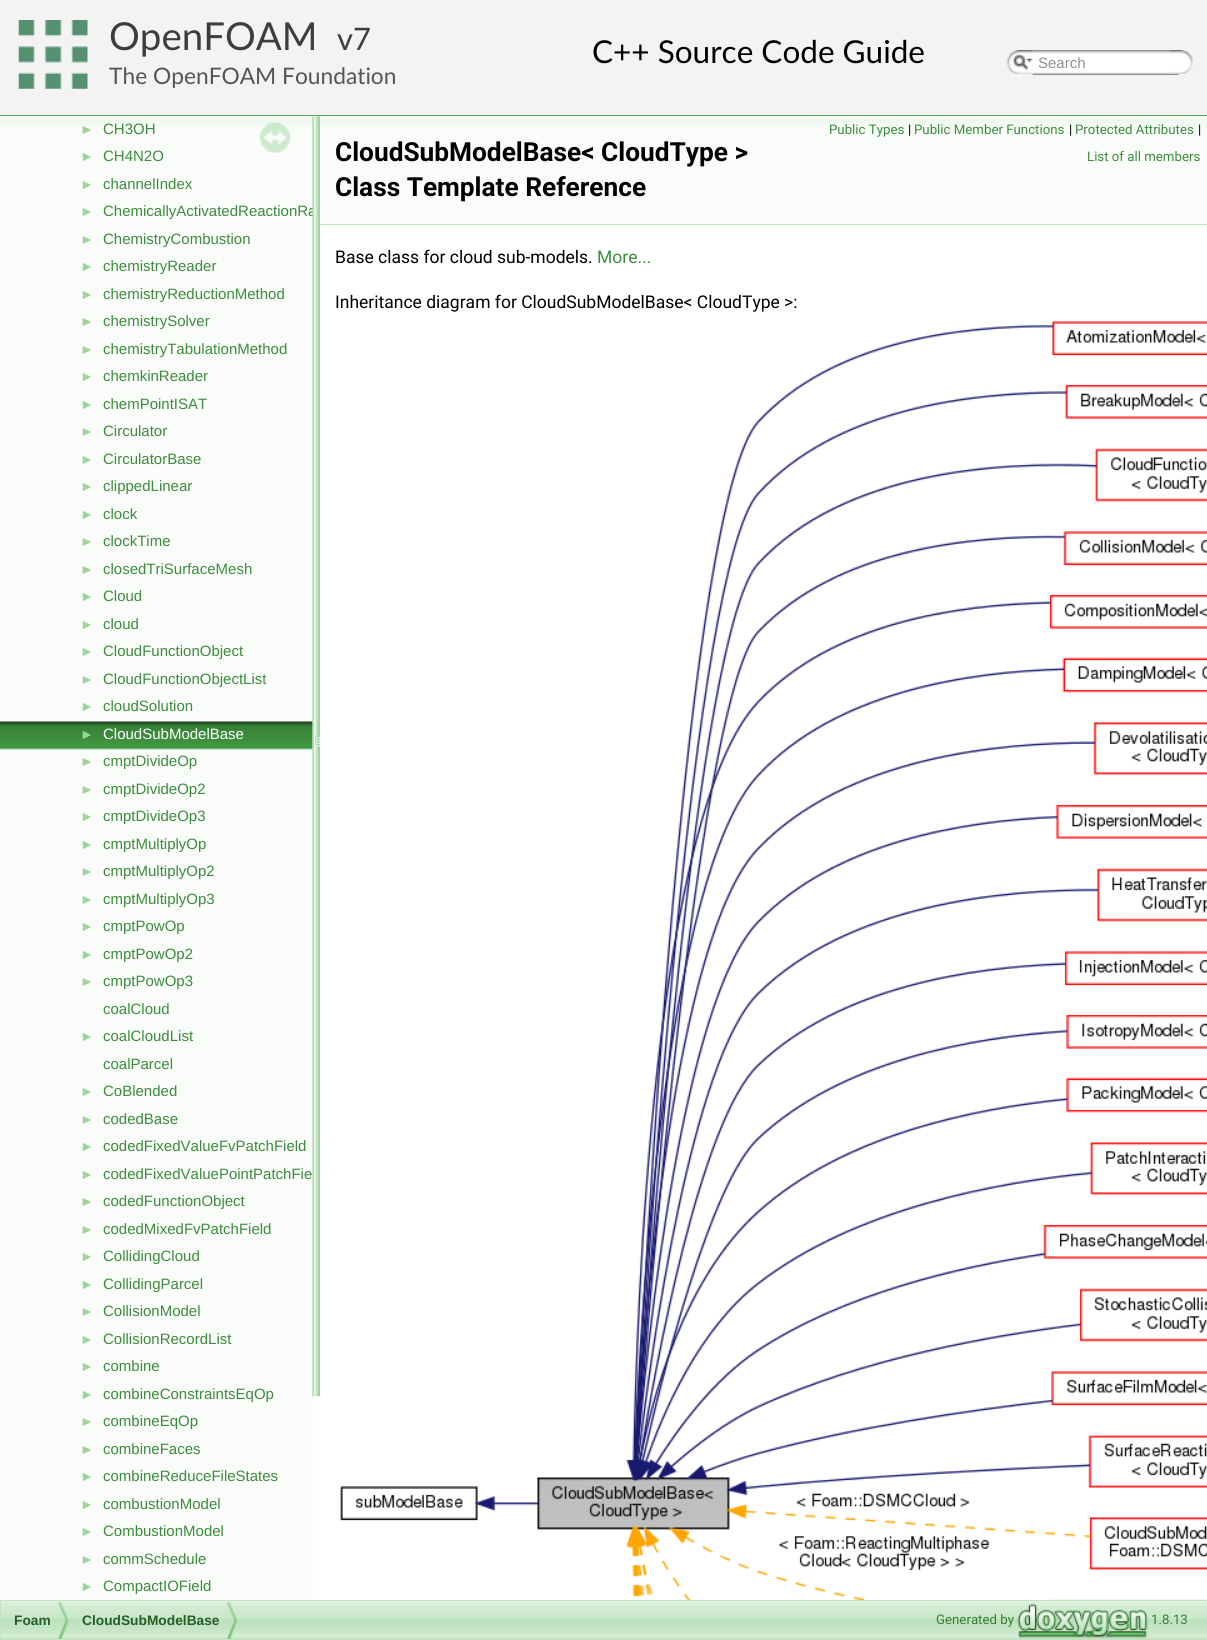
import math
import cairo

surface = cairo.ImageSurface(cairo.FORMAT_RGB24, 1207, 1640)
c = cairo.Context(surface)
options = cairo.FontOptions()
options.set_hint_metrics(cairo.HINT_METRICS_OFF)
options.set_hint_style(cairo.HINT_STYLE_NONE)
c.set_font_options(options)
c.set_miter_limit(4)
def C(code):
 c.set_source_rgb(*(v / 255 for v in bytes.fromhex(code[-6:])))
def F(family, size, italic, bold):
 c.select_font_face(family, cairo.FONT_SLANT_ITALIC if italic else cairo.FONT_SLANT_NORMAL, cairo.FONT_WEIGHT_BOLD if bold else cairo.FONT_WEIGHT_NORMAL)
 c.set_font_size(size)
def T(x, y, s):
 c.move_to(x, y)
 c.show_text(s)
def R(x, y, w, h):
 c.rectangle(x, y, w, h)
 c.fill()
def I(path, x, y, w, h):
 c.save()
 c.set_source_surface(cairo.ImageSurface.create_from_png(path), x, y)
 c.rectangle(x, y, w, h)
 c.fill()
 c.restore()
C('ffffff')
c.paint()
C('f3f3f3')
R(0,0,1207,115)
C('53b453')
R(0,115,1207,1)
I('1.png',18,20,70,69)
F('Lato',38.5,0,0)
C('3d3d3d')
T(109,50,'OpenFOAM')
F('Lato',31,0,0)
T(337,50,'v7')
F('Lato',22.75,0,0)
C('555555')
T(109,84,'The OpenFOAM Foundation')
I('2.png',1007,50,26,24)
I('3.png',1013,54,20,16)
I('4.png',1032,50,147,25)
F('Liberation Sans',15,0,0)
C('909090')
T(1038,68,'Search')
I('5.png',1170,50,23,24)
F('Lato',31.5,0,0)
C('000000')
T(592,63,'C++ Source Code Guide')
C('f9fcf9')
R(0,116,313,1484)
I('6.png',0,116,313,10)
I('7.png',260,122,30,31)
F('Liberation Sans',14,0,0)
C('9cd49c')
T(80,134,'►')
F('Liberation Sans',15,0,0)
C('3d8c3d')
T(103,134,'CH3OH')
F('Liberation Sans',14,0,0)
C('9cd49c')
T(80,161,'►')
F('Liberation Sans',15,0,0)
C('3d8c3d')
T(103,161,'CH4N2O')
F('Liberation Sans',14,0,0)
C('9cd49c')
T(80,189,'►')
F('Liberation Sans',15,0,0)
C('3d8c3d')
T(103,189,'channelIndex')
F('Liberation Sans',14,0,0)
C('9cd49c')
T(80,216,'►')
F('Liberation Sans',15,0,0)
C('3d8c3d')
T(103,216,'ChemicallyActivatedReactionRa')
F('Liberation Sans',14,0,0)
C('9cd49c')
T(80,244,'►')
F('Liberation Sans',15,0,0)
C('3d8c3d')
T(103,244,'ChemistryCombustion')
F('Liberation Sans',14,0,0)
C('9cd49c')
T(80,271,'►')
F('Liberation Sans',15,0,0)
C('3d8c3d')
T(103,271,'chemistryReader')
F('Liberation Sans',14,0,0)
C('9cd49c')
T(80,299,'►')
F('Liberation Sans',15,0,0)
C('3d8c3d')
T(103,299,'chemistryReductionMethod')
F('Liberation Sans',14,0,0)
C('9cd49c')
T(80,326,'►')
F('Liberation Sans',15,0,0)
C('3d8c3d')
T(103,326,'chemistrySolver')
F('Liberation Sans',14,0,0)
C('9cd49c')
T(80,354,'►')
F('Liberation Sans',15,0,0)
C('3d8c3d')
T(103,354,'chemistryTabulationMethod')
F('Liberation Sans',14,0,0)
C('9cd49c')
T(80,381,'►')
F('Liberation Sans',15,0,0)
C('3d8c3d')
T(103,381,'chemkinReader')
F('Liberation Sans',14,0,0)
C('9cd49c')
T(80,409,'►')
F('Liberation Sans',15,0,0)
C('3d8c3d')
T(103,409,'chemPointISAT')
F('Liberation Sans',14,0,0)
C('9cd49c')
T(80,436,'►')
F('Liberation Sans',15,0,0)
C('3d8c3d')
T(103,436,'Circulator')
F('Liberation Sans',14,0,0)
C('9cd49c')
T(80,464,'►')
F('Liberation Sans',15,0,0)
C('3d8c3d')
T(103,464,'CirculatorBase')
F('Liberation Sans',14,0,0)
C('9cd49c')
T(80,491,'►')
F('Liberation Sans',15,0,0)
C('3d8c3d')
T(103,491,'clippedLinear')
F('Liberation Sans',14,0,0)
C('9cd49c')
T(80,519,'►')
F('Liberation Sans',15,0,0)
C('3d8c3d')
T(103,519,'clock')
F('Liberation Sans',14,0,0)
C('9cd49c')
T(80,546,'►')
F('Liberation Sans',15,0,0)
C('3d8c3d')
T(103,546,'clockTime')
F('Liberation Sans',14,0,0)
C('9cd49c')
T(80,574,'►')
F('Liberation Sans',15,0,0)
C('3d8c3d')
T(103,574,'closedTriSurfaceMesh')
F('Liberation Sans',14,0,0)
C('9cd49c')
T(80,601,'►')
F('Liberation Sans',15,0,0)
C('3d8c3d')
T(103,601,'Cloud')
F('Liberation Sans',14,0,0)
C('9cd49c')
T(80,629,'►')
F('Liberation Sans',15,0,0)
C('3d8c3d')
T(103,629,'cloud')
F('Liberation Sans',14,0,0)
C('9cd49c')
T(80,656,'►')
F('Liberation Sans',15,0,0)
C('3d8c3d')
T(103,656,'CloudFunctionObject')
F('Liberation Sans',14,0,0)
C('9cd49c')
T(80,684,'►')
F('Liberation Sans',15,0,0)
C('3d8c3d')
T(103,684,'CloudFunctionObjectList')
F('Liberation Sans',14,0,0)
C('9cd49c')
T(80,711,'►')
F('Liberation Sans',15,0,0)
C('3d8c3d')
T(103,711,'cloudSolution')
I('8.png',0,721,313,29)
F('Liberation Sans',14,0,0)
C('9cd49c')
T(80,739,'►')
F('Liberation Sans',15,0,0)
C('ffffff')
T(103,739,'CloudSubModelBase')
F('Liberation Sans',14,0,0)
C('9cd49c')
T(80,766,'►')
F('Liberation Sans',15,0,0)
C('3d8c3d')
T(103,766,'cmptDivideOp')
F('Liberation Sans',14,0,0)
C('9cd49c')
T(80,794,'►')
F('Liberation Sans',15,0,0)
C('3d8c3d')
T(103,794,'cmptDivideOp2')
F('Liberation Sans',14,0,0)
C('9cd49c')
T(80,821,'►')
F('Liberation Sans',15,0,0)
C('3d8c3d')
T(103,821,'cmptDivideOp3')
F('Liberation Sans',14,0,0)
C('9cd49c')
T(80,849,'►')
F('Liberation Sans',15,0,0)
C('3d8c3d')
T(103,849,'cmptMultiplyOp')
F('Liberation Sans',14,0,0)
C('9cd49c')
T(80,876,'►')
F('Liberation Sans',15,0,0)
C('3d8c3d')
T(103,876,'cmptMultiplyOp2')
F('Liberation Sans',14,0,0)
C('9cd49c')
T(80,904,'►')
F('Liberation Sans',15,0,0)
C('3d8c3d')
T(103,904,'cmptMultiplyOp3')
F('Liberation Sans',14,0,0)
C('9cd49c')
T(80,931,'►')
F('Liberation Sans',15,0,0)
C('3d8c3d')
T(103,931,'cmptPowOp')
F('Liberation Sans',14,0,0)
C('9cd49c')
T(80,959,'►')
F('Liberation Sans',15,0,0)
C('3d8c3d')
T(103,959,'cmptPowOp2')
F('Liberation Sans',14,0,0)
C('9cd49c')
T(80,986,'►')
F('Liberation Sans',15,0,0)
C('3d8c3d')
T(103,986,'cmptPowOp3')
T(103,1014,'coalCloud')
F('Liberation Sans',14,0,0)
C('9cd49c')
T(80,1041,'►')
F('Liberation Sans',15,0,0)
C('3d8c3d')
T(103,1041,'coalCloudList')
T(103,1069,'coalParcel')
F('Liberation Sans',14,0,0)
C('9cd49c')
T(80,1096,'►')
F('Liberation Sans',15,0,0)
C('3d8c3d')
T(103,1096,'CoBlended')
F('Liberation Sans',14,0,0)
C('9cd49c')
T(80,1124,'►')
F('Liberation Sans',15,0,0)
C('3d8c3d')
T(103,1124,'codedBase')
F('Liberation Sans',14,0,0)
C('9cd49c')
T(80,1151,'►')
F('Liberation Sans',15,0,0)
C('3d8c3d')
T(103,1151,'codedFixedValueFvPatchField')
F('Liberation Sans',14,0,0)
C('9cd49c')
T(80,1179,'►')
F('Liberation Sans',15,0,0)
C('3d8c3d')
T(103,1179,'codedFixedValuePointPatchFie')
F('Liberation Sans',14,0,0)
C('9cd49c')
T(80,1206,'►')
F('Liberation Sans',15,0,0)
C('3d8c3d')
T(103,1206,'codedFunctionObject')
F('Liberation Sans',14,0,0)
C('9cd49c')
T(80,1234,'►')
F('Liberation Sans',15,0,0)
C('3d8c3d')
T(103,1234,'codedMixedFvPatchField')
F('Liberation Sans',14,0,0)
C('9cd49c')
T(80,1261,'►')
F('Liberation Sans',15,0,0)
C('3d8c3d')
T(103,1261,'CollidingCloud')
F('Liberation Sans',14,0,0)
C('9cd49c')
T(80,1289,'►')
F('Liberation Sans',15,0,0)
C('3d8c3d')
T(103,1289,'CollidingParcel')
F('Liberation Sans',14,0,0)
C('9cd49c')
T(80,1316,'►')
F('Liberation Sans',15,0,0)
C('3d8c3d')
T(103,1316,'CollisionModel')
F('Liberation Sans',14,0,0)
C('9cd49c')
T(80,1344,'►')
F('Liberation Sans',15,0,0)
C('3d8c3d')
T(103,1344,'CollisionRecordList')
F('Liberation Sans',14,0,0)
C('9cd49c')
T(80,1371,'►')
F('Liberation Sans',15,0,0)
C('3d8c3d')
T(103,1371,'combine')
F('Liberation Sans',14,0,0)
C('9cd49c')
T(80,1399,'►')
F('Liberation Sans',15,0,0)
C('3d8c3d')
T(103,1399,'combineConstraintsEqOp')
F('Liberation Sans',14,0,0)
C('9cd49c')
T(80,1426,'►')
F('Liberation Sans',15,0,0)
C('3d8c3d')
T(103,1426,'combineEqOp')
F('Liberation Sans',14,0,0)
C('9cd49c')
T(80,1454,'►')
F('Liberation Sans',15,0,0)
C('3d8c3d')
T(103,1454,'combineFaces')
F('Liberation Sans',14,0,0)
C('9cd49c')
T(80,1481,'►')
F('Liberation Sans',15,0,0)
C('3d8c3d')
T(103,1481,'combineReduceFileStates')
F('Liberation Sans',14,0,0)
C('9cd49c')
T(80,1509,'►')
F('Liberation Sans',15,0,0)
C('3d8c3d')
T(103,1509,'combustionModel')
F('Liberation Sans',14,0,0)
C('9cd49c')
T(80,1536,'►')
F('Liberation Sans',15,0,0)
C('3d8c3d')
T(103,1536,'CombustionModel')
F('Liberation Sans',14,0,0)
C('9cd49c')
T(80,1564,'►')
F('Liberation Sans',15,0,0)
C('3d8c3d')
T(103,1564,'commSchedule')
F('Liberation Sans',14,0,0)
C('9cd49c')
T(80,1591,'►')
F('Liberation Sans',15,0,0)
C('3d8c3d')
T(103,1591,'CompactIOField')
I('9.png',312,116,8,1281)
C('f9fcf9')
R(320,116,887,108)
I('10.png',320,118,887,8)
C('c4e5c4')
R(320,224,887,1)
F('Roboto',26.25,0,1)
C('000000')
T(335,161,'CloudSubModelBase< CloudType >')
T(335,196,'Class Template Reference')
F('Roboto',13.25,0,0)
C('3d8c3d')
T(829,134,'Public Types')
C('000000')
T(908,134,'|')
C('3d8c3d')
T(914,134,'Public Member Functions')
C('000000')
T(1069,134,'|')
C('3d8c3d')
T(1075,134,'Protected Attributes')
C('000000')
T(1198,134,'|')
C('3d8c3d')
T(1087,161,'List of all members')
F('Roboto',17.5,0,0)
C('000000')
T(335,263,'Base class for cloud sub-models.')
C('3d8c3d')
T(597,263,'More...')
C('000000')
T(335,308,'Inheritance diagram for CloudSubModelBase< CloudType >:')
I('11.png',340,321,867,1279)
I('12.png',1,1601,1206,38)
c.rectangle(.5,1600.5,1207,39)
C('c2e4c2')
c.set_line_width(1)
c.stroke()
I('13.png',58,1602,11,37)
F('Liberation Sans',13.75,0,1)
C('285d28')
T(14,1625,'Foam')
I('14.png',227,1602,11,37)
T(82,1625,'CloudSubModelBase')
F('Roboto',13.25,0,0)
C('367c36')
T(936,1624,'Generated by')
I('15.png',1017,1603,131,35)
T(1151,1624,'1.8.13')
surface.write_to_png('o.png')
